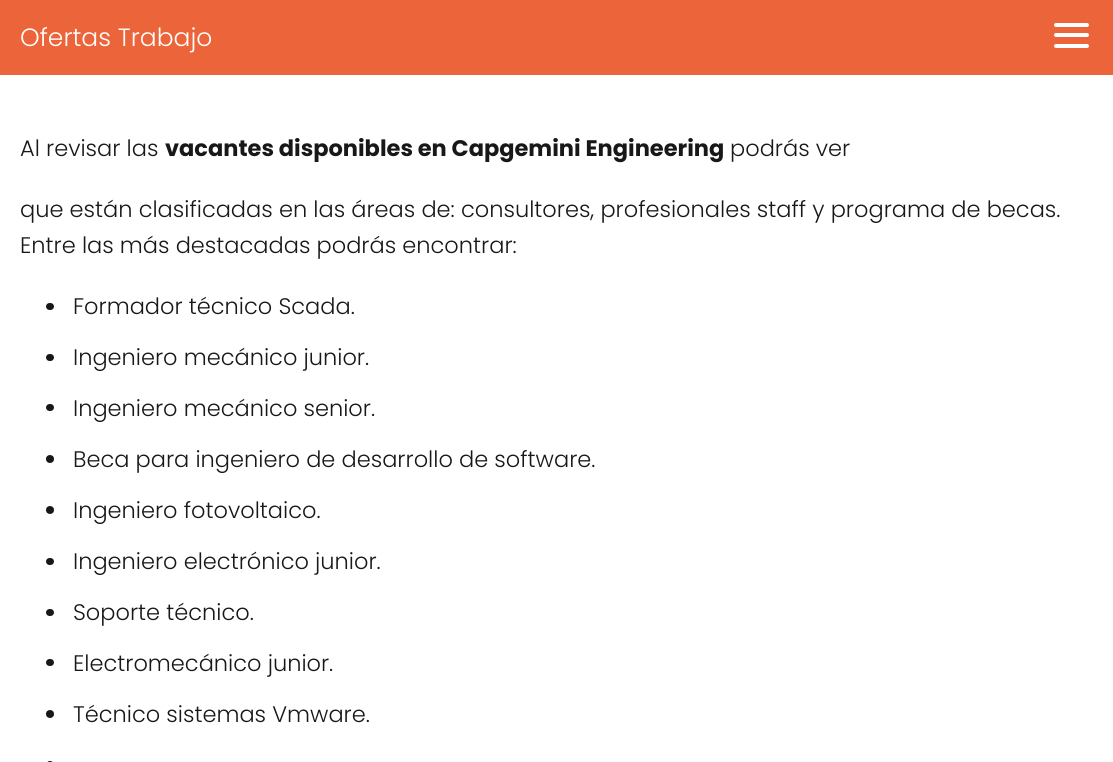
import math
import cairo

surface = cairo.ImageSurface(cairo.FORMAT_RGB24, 1113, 762)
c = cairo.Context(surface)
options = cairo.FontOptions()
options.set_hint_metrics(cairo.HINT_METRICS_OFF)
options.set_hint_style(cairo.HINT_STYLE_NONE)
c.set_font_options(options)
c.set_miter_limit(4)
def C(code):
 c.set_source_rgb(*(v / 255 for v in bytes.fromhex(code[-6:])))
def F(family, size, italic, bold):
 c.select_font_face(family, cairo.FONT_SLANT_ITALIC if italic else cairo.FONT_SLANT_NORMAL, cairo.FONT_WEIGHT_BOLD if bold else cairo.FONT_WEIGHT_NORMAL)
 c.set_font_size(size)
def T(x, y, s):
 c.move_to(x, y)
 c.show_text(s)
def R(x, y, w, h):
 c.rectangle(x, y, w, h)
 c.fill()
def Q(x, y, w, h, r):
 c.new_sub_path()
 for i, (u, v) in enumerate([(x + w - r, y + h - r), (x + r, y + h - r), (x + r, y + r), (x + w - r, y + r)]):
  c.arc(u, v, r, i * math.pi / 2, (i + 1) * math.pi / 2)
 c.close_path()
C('ffffff')
c.paint()
C('ec6439')
R(0,0,1113,75)
F('Poppins Light',25,0,0)
C('ffffff')
T(20,46,'Ofertas Trabajo')
Q(1054,23,35,4,2)
c.fill()
Q(1054,33,35,4,2)
c.fill()
Q(1054,44,35,4,2)
c.fill()
F('Poppins Light',22.5,0,0)
C('181818')
T(20,156,'Al revisar las')
F('Poppins',22.5,0,1)
T(165,156,'vacantes disponibles en Capgemini Engineering')
F('Poppins Light',22.5,0,0)
T(730,156,'podrás ver')
T(20,217,'que están clasificadas en las áreas de: consultores, profesionales staff y programa de becas.')
T(20,253,'Entre las más destacadas podrás encontrar:')
Q(46,303,8,7,3.5)
c.fill()
T(73,314,'Formador técnico Scada.')
Q(46,354,8,7,3.5)
c.fill()
T(73,365,'Ingeniero mecánico junior.')
Q(46,404,8,7,3.5)
c.fill()
T(73,416,'Ingeniero mecánico senior.')
c.new_path()
c.arc(50,459,4,0,2 * math.pi)
c.fill()
T(73,467,'Beca para ingeniero de desarrollo de software.')
c.new_path()
c.arc(50,510,4,0,2 * math.pi)
c.fill()
T(73,518,'Ingeniero fotovoltaico.')
Q(46,558,8,7,3.5)
c.fill()
T(73,569,'Ingeniero electrónico junior.')
Q(46,609,8,7,3.5)
c.fill()
T(73,620,'Soporte técnico.')
Q(46,659,8,7,3.5)
c.fill()
T(73,671,'Electromecánico junior.')
c.new_path()
c.arc(50,714,4,0,2 * math.pi)
c.fill()
T(73,722,'Técnico sistemas Vmware.')
Q(46,761,8,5,4)
c.fill()
surface.write_to_png('o.png')
